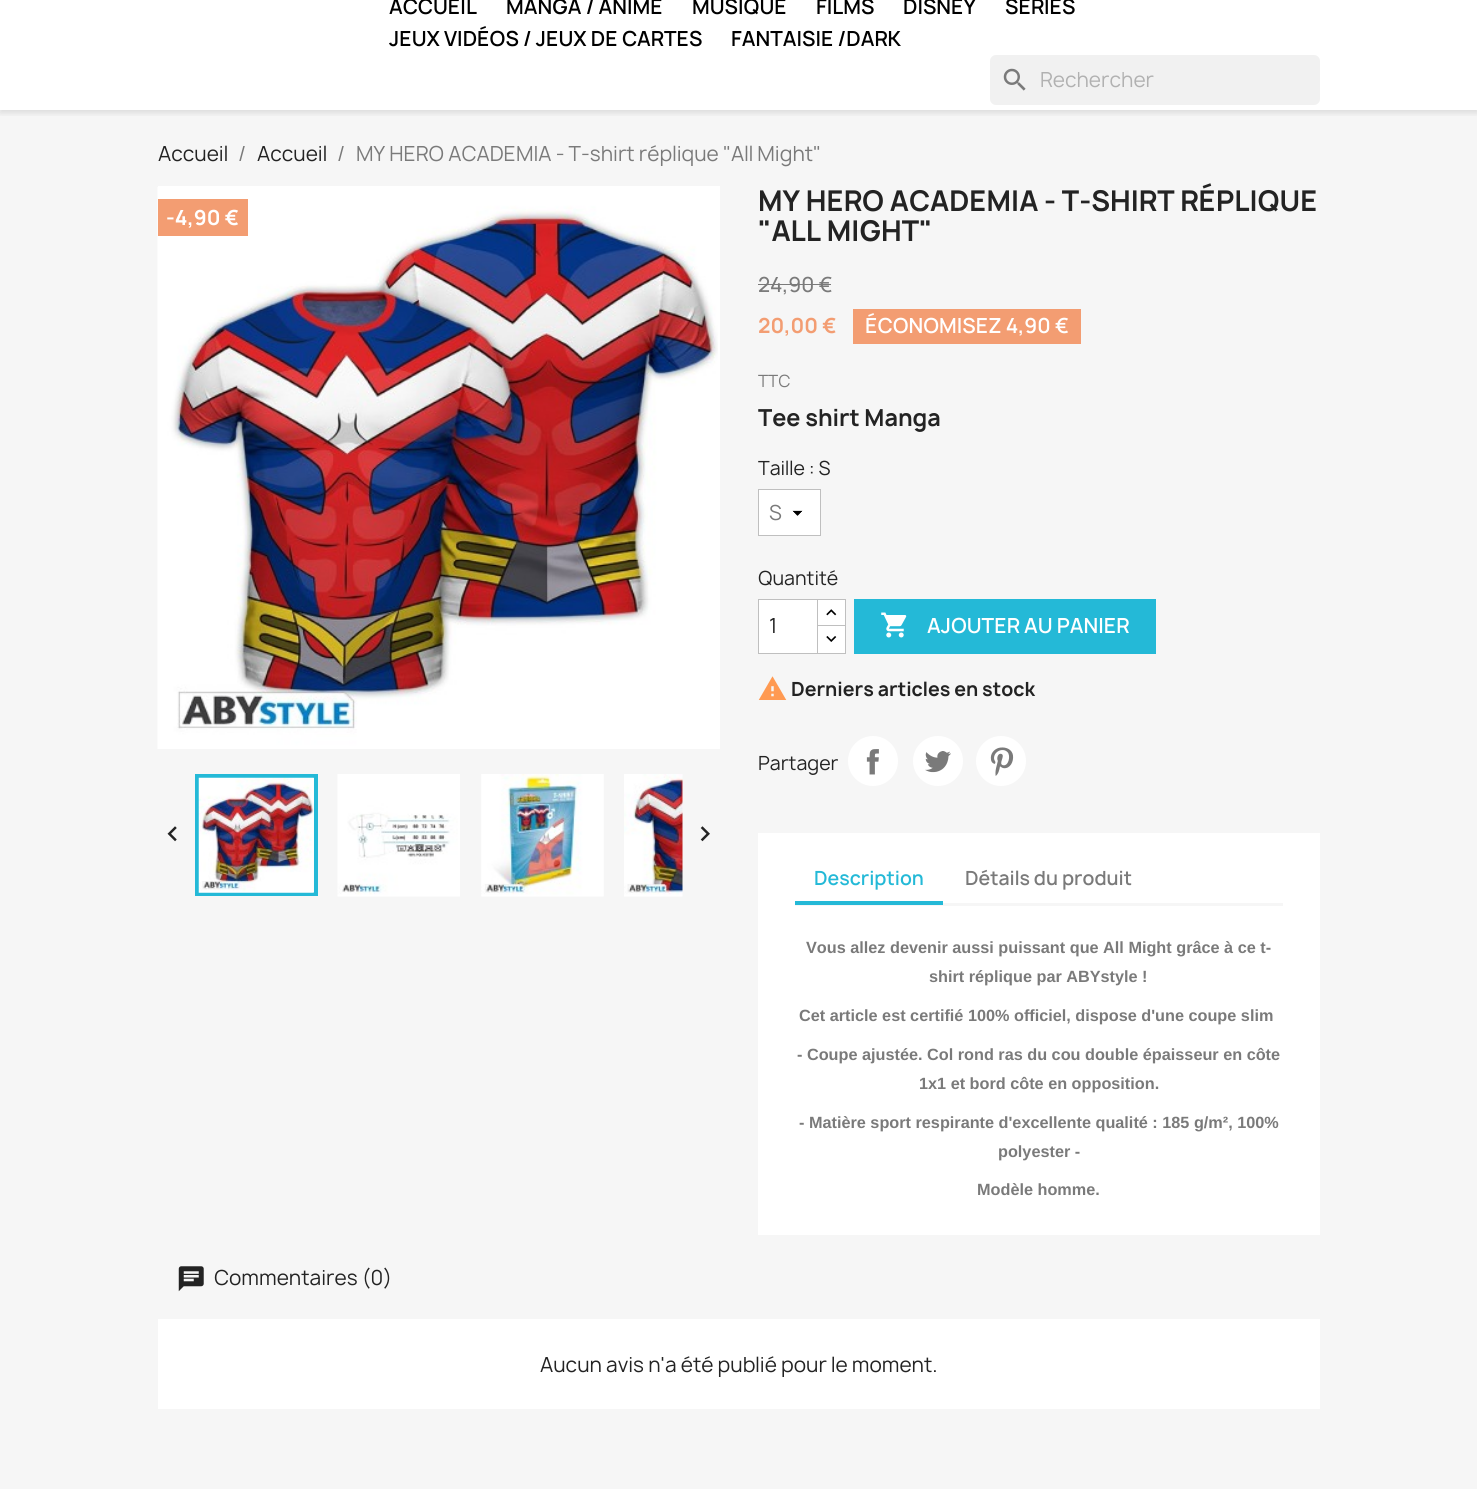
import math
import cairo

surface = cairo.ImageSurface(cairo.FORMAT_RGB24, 1477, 1489)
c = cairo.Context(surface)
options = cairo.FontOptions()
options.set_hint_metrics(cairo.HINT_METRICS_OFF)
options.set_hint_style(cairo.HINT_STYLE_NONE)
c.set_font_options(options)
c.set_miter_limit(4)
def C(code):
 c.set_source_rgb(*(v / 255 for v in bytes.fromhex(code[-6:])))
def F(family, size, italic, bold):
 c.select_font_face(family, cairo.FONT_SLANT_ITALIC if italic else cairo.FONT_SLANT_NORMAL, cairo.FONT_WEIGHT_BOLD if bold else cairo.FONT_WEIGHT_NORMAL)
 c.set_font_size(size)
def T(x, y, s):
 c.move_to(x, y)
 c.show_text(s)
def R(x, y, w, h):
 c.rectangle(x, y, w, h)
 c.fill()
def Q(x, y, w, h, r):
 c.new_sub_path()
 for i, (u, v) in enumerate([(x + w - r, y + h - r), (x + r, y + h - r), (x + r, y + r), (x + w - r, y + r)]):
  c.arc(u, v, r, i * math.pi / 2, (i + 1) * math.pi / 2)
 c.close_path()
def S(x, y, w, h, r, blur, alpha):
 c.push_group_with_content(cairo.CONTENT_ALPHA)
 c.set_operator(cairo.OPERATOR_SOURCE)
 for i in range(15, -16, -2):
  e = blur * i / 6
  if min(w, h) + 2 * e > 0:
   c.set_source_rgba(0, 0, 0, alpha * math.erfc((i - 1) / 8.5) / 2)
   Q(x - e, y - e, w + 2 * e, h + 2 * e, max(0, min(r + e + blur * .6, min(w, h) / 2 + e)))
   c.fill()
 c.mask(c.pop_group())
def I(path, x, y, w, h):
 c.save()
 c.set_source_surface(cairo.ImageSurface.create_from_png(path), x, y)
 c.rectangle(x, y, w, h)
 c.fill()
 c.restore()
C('ffffff')
c.paint()
C('f6f6f6')
R(0,110,1477,1379)
c.save()
c.rectangle(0,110,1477,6)
c.clip()
C('000000')
S(0,-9,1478,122,0,3,.11)
c.restore()
F('Manrope SemiBold',20,0,0)
C('000000')
T(389,14,'ACCUEIL')
T(506,14,'MANGA / ANIME')
T(692,14,'MUSIQUE')
T(816,14,'FILMS')
T(903,14,'DISNEY')
T(1005,14,'SÉRIES')
T(389,46,'JEUX VIDÉOS / JEUX DE CARTES')
T(731,46,'FANTAISIE /DARK')
C('f1f1f1')
Q(990,55,330,50,6)
c.fill()
I('1.png',1003,68,23,23)
F('Manrope',20,0,0)
C('b1b1b1')
T(1040,87,'Rechercher')
C('232323')
T(158,161,'Accueil')
C('7a7a7a')
T(238,161,'/')
C('232323')
T(257,161,'Accueil')
C('7a7a7a')
T(337,161,'/')
T(356,161,'MY HERO ACADEMIA - T-shirt réplique "All Might"')
C('ffffff')
R(158,186,562,563)
I('2.png',157,187,561,562)
c.rectangle(197,776,119,118)
C('24b9d7')
c.set_line_width(4)
c.stroke()
I('3.png',337,774,123,123)
I('4.png',481,774,123,123)
I('5.png',624,774,59,123)
I('6.png',198,777,116,116)
C('f39d72')
R(158,199,90,37)
F('Manrope',20,0,1)
C('ffffff')
T(166,225,'-4,90 €')
I('7.png',167,826,10,16)
I('8.png',700,826,10,16)
F('Manrope',27.5,0,1)
C('232323')
T(758,211,'MY HERO ACADEMIA - T-SHIRT RÉPLIQUE')
T(758,241,'"ALL MIGHT"')
F('Manrope Medium',20,0,0)
C('7a7a7a')
T(758,292,'24,90 €')
R(758,284,73,1)
F('Manrope',20,0,1)
C('f39d72')
T(758,333,'20,00 €')
R(853,309,228,35)
F('Manrope SemiBold',20,0,0)
C('ffffff')
T(865,333,'ÉCONOMISEZ 4,90 €')
F('Manrope',16.25,0,0)
C('7a7a7a')
T(758,387,'TTC')
F('Manrope',22.5,0,1)
C('232323')
T(758,426,'Tee shirt Manga')
F('Manrope',18.75,0,0)
T(758,475,'Taille : S')
C('ffffff')
R(759,490,61,45)
I('9.png',792,510,11,6)
c.rectangle(758.5,489.5,62,46)
C('bfbfbf')
c.set_line_width(1)
c.stroke()
F('Manrope',20,0,0)
C('7a7a7a')
T(769,520,'S')
F('Manrope',18.75,0,0)
C('232323')
T(758,585,'Quantité')
C('ffffff')
R(818,600,27,25)
c.rectangle(816.5,599.5,29,28)
C('bfbfbf')
c.stroke()
C('ffffff')
R(818,626,27,27)
c.rectangle(816.5,625.5,29,28)
C('bfbfbf')
c.stroke()
C('ffffff')
c.rectangle(758.5,599.5,59,54)
c.fill_preserve()
C('bfbfbf')
c.stroke()
F('Manrope',20,0,0)
C('232323')
T(769,633,'1')
I('10.png',826,609,11,7)
I('11.png',826,636,11,6)
C('24b9d7')
R(854,599,302,55)
I('12.png',881,612,26,26)
F('Manrope SemiBold',20,0,0)
C('ffffff')
T(927,633,'AJOUTER AU PANIER')
I('13.png',758,676,29,24)
F('Manrope',18.75,0,1)
C('232323')
T(791,696,'Derniers articles en stock')
F('Manrope',18.75,0,0)
T(758,770,'Partager')
C('ffffff')
c.new_path()
c.arc(873,761,25,0,2 * math.pi)
c.fill()
I('14.png',866,749,13,26)
c.arc(938,761,25,0,2 * math.pi)
c.fill()
I('15.png',925,751,26,22)
c.arc(1001,761,25,0,2 * math.pi)
c.fill()
I('16.png',990,747,24,29)
R(758,833,562,402)
C('f6f6f6')
R(795,903,488,3)
C('24b9d7')
R(795,901,148,4)
F('Manrope SemiBold',18.75,0,0)
T(814,885,'Description')
C('7a7a7a')
T(965,885,'Détails du produit')
F('Liberation Sans',16.25,0,1)
T(806,953,'Vous allez devenir aussi puissant que All Might grâce à ce t-')
T(929,982,'shirt réplique par ABYstyle !')
T(799,1021,'Cet article est certifié 100% officiel, dispose d\'une coupe slim')
T(797,1060,'- Coupe ajustée. Col rond ras du cou double épaisseur en côte')
T(919,1089,'1x1 et bord côte en opposition.')
T(799,1128,'- Matière sport respirante d\'excellente qualité : 185 g/m², 100%')
T(998,1157,'polyester -')
T(977,1195,'Modèle homme.')
I('17.png',178,1266,26,26)
F('Manrope',20,0,0)
C('232323')
T(214,1285,'Commentaires (0)')
C('ffffff')
R(158,1319,1162,90)
C('232323')
T(540,1372,'Aucun avis n\'a été publié pour le moment.')
surface.write_to_png('o.png')
